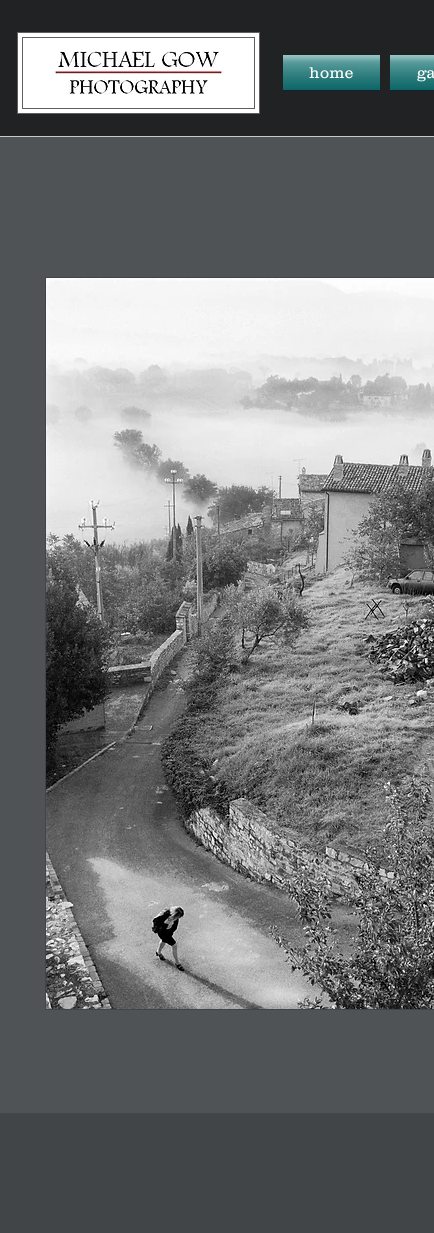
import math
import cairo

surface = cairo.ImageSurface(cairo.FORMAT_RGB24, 434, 1233)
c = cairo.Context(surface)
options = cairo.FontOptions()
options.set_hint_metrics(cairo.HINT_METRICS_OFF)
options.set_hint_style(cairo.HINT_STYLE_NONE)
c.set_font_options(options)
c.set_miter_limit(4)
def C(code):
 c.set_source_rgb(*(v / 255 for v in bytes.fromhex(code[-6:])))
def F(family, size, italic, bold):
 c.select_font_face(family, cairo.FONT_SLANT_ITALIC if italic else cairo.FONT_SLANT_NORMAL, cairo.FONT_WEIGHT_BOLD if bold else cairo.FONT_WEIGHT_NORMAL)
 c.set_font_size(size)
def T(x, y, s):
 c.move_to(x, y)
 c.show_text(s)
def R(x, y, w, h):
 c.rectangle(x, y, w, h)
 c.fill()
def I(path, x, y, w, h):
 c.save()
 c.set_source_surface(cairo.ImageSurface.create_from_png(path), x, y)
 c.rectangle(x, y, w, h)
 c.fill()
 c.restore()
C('414547')
c.paint()
C('202223')
R(0,0,434,136)
C('c7c8c8')
R(0,136,434,1)
C('ffffff')
c.rectangle(17.5,32.5,242,81)
c.fill_preserve()
C('605e5e')
c.set_line_width(1)
c.stroke()
I('1.png',52,51,174,44)
c.rectangle(22.5,37.5,232,71)
c.stroke()
C('0e2231')
R(283,90,97,1)
C('006c6d')
R(283,55,97,35)
I('2.png',283,55,97,35)
I('3.png',283,56,97,34)
F('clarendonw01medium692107 Light',16,0,0)
C('ffffff')
T(309,78,'home')
C('0e2231')
R(390,90,44,1)
C('006c6d')
R(390,55,44,35)
I('4.png',390,55,44,35)
I('5.png',390,56,44,34)
C('ffffff')
T(417,78,'ga')
C('505356')
R(0,137,434,976)
c.rectangle(45.5,277.5,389,732)
C('414547')
c.stroke()
I('6.png',46,278,388,731)
surface.write_to_png('o.png')
